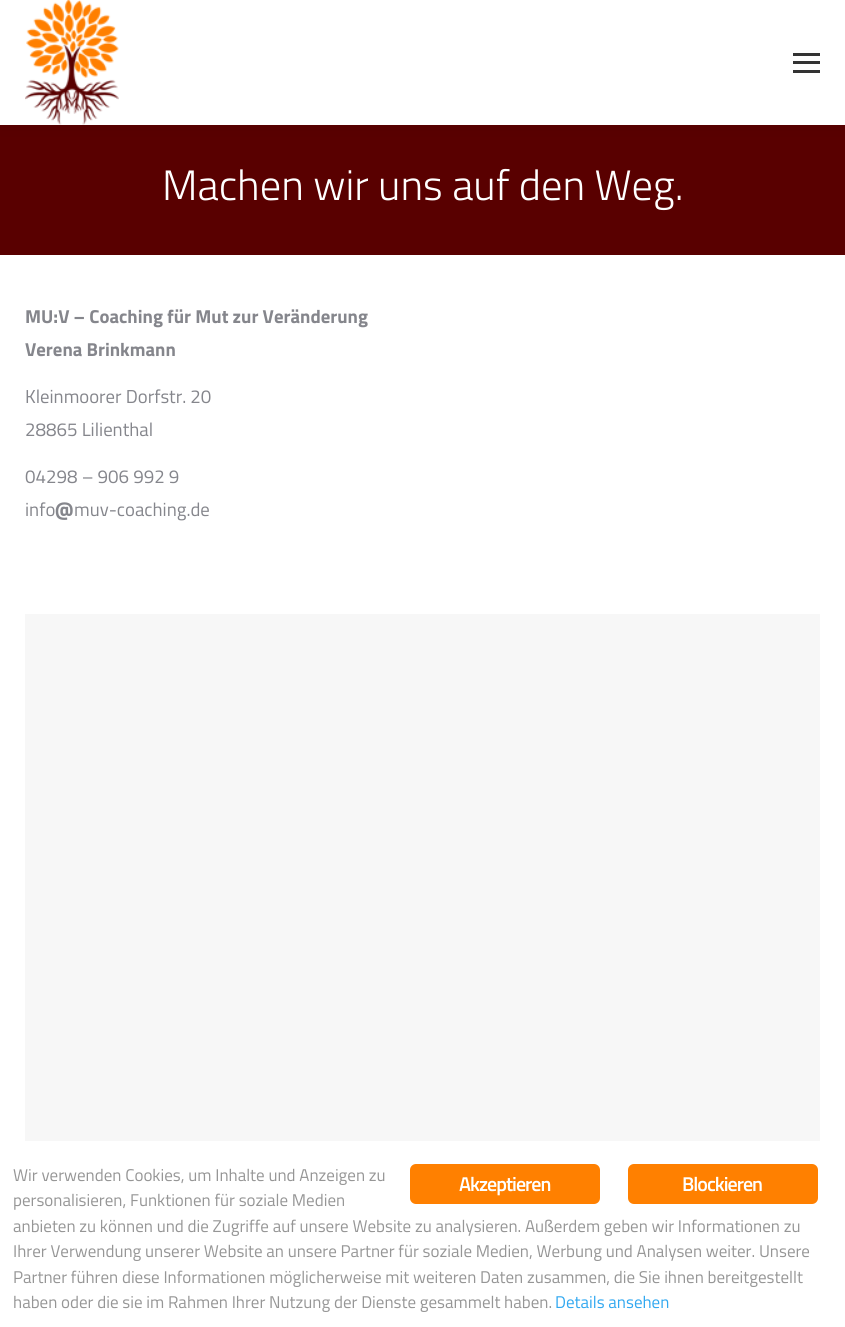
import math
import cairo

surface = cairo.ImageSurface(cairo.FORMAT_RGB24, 845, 1327)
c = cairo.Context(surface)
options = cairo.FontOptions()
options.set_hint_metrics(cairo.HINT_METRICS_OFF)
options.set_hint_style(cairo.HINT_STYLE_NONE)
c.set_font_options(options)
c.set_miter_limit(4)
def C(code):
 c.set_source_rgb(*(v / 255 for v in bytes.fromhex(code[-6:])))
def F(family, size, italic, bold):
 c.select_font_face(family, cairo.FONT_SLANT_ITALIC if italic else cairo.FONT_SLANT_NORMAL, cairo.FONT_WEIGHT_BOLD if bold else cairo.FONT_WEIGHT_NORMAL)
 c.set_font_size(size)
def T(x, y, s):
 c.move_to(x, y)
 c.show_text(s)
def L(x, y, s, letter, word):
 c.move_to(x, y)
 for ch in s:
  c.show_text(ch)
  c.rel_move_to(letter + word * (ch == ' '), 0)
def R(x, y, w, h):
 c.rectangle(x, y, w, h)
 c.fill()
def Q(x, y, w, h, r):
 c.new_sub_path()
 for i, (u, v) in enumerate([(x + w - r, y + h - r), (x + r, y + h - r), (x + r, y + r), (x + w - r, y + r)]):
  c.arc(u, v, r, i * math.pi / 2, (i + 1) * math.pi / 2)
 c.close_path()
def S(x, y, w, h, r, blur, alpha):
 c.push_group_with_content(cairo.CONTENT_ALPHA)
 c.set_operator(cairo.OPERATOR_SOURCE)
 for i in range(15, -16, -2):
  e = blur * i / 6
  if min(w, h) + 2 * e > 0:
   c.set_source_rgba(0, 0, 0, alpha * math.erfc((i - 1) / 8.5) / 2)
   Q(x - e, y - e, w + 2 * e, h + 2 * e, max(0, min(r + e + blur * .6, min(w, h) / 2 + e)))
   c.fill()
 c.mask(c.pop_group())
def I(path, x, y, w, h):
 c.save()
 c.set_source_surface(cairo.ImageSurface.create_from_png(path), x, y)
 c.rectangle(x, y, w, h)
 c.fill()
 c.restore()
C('ffffff')
c.paint()
C('590000')
R(0,125,845,130)
C('000000')
S(-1,-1,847,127,0,9.5,.07)
C('ffffff')
R(0,0,845,125)
I('1.png',25,0,94,125)
C('333333')
R(793,61,27,3)
R(793,53,27,3)
R(793,70,27,3)
F('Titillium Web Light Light',42.5,0,0)
C('ffffff')
T(162,200,'Machen wir uns auf den Weg.')
F('Titillium Web',18.75,0,1)
C('85868c')
T(25,323,'MU:V – Coaching für Mut zur Veränderung')
T(25,356,'Verena Brinkmann')
F('Titillium Web',18.75,0,0)
T(25,403,'Kleinmoorer Dorfstr. 20')
T(25,436,'28865 Lilienthal')
T(25,483,'04298 – 906 992 9')
T(25,516,'info')
F('Titillium Web',18.75,0,1)
T(55,516,'@')
F('Titillium Web',18.75,0,0)
T(74,516,'muv-coaching.de')
C('f7f7f7')
R(25,614,795,527)
F('Titillium Web',17,0,0)
C('969696')
T(13,1181,'Wir verwenden Cookies, um Inhalte und Anzeigen zu')
T(13,1206,'personalisieren, Funktionen für soziale Medien')
T(13,1232,'anbieten zu können und die Zugriffe auf unsere Website zu analysieren. Außerdem geben wir Informationen zu')
T(13,1257,'Ihrer Verwendung unserer Website an unsere Partner für soziale Medien, Werbung und Analysen weiter. Unsere')
T(13,1283,'Partner führen diese Informationen möglicherweise mit weiteren Daten zusammen, die Sie ihnen bereitgestellt')
T(13,1308,'haben oder die sie im Rahmen Ihrer Nutzung der Dienste gesammelt haben.')
C('31a8f0')
T(555,1308,'Details ansehen')
C('ff8000')
Q(410,1164,190,40,6)
c.fill()
F('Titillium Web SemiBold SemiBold',20,0,0)
C('ffffff')
L(459,1191,'Akzeptieren',-1,0)
C('ff8000')
Q(628,1164,190,40,6)
c.fill()
C('ffffff')
L(682,1191,'Blockieren',-1,0)
surface.write_to_png('o.png')
